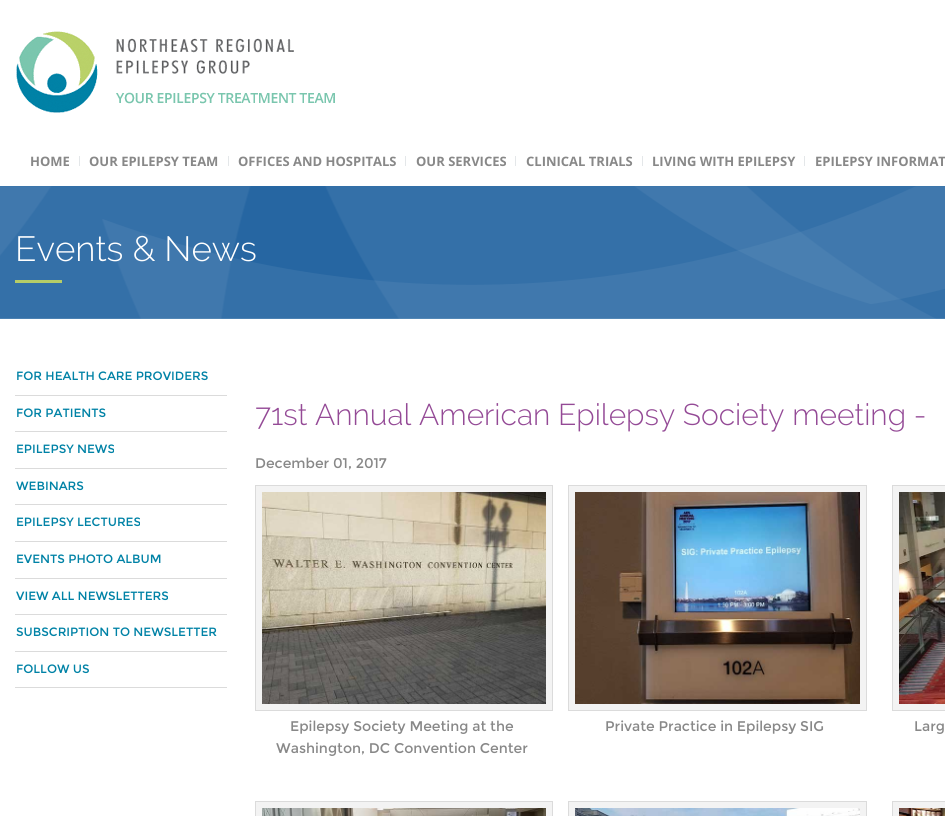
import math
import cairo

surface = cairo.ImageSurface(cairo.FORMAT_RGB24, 945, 816)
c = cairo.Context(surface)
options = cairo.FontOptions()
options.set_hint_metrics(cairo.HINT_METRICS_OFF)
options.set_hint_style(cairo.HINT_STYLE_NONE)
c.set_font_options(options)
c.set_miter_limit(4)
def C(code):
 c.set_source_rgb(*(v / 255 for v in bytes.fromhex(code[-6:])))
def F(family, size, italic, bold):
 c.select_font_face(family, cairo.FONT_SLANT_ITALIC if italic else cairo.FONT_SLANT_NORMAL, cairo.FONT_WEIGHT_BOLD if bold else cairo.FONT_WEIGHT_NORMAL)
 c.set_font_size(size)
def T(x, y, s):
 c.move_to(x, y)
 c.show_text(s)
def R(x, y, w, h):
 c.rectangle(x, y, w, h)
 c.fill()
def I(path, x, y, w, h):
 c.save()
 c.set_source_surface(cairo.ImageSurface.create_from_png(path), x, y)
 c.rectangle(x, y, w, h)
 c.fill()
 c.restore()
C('ffffff')
c.paint()
I('1.png',16,31,319,82)
F('Open Sans',13,0,1)
C('888888')
T(30,166,'HOME')
C('e4e7e9')
R(79,156,1,10)
C('888888')
T(89,166,'OUR EPILEPSY TEAM')
C('e4e7e9')
R(228,156,1,10)
C('888888')
T(238,166,'OFFICES AND HOSPITALS')
C('e4e7e9')
R(405,156,1,10)
C('888888')
T(416,166,'OUR SERVICES')
C('e4e7e9')
R(515,156,1,10)
C('888888')
T(526,166,'CLINICAL TRIALS')
C('e4e7e9')
R(642,156,1,10)
C('888888')
T(652,166,'LIVING WITH EPILEPSY')
C('e4e7e9')
R(804,156,1,10)
C('888888')
T(815,166,'EPILEPSY INFORMAT')
I('2.png',0,186,945,133)
F('Raleway Light',35,0,0)
C('ffffff')
T(15,261,'Events & News')
C('b6cd67')
R(15,280,47,3)
C('dbdbdb')
R(15,395,212,1)
F('Montserrat',12,0,0)
C('0082a6')
T(16,380,'FOR HEALTH CARE PROVIDERS')
C('dbdbdb')
R(15,431,212,1)
C('0082a6')
T(16,417,'FOR PATIENTS')
C('dbdbdb')
R(15,468,212,1)
C('0082a6')
T(16,453,'EPILEPSY NEWS')
C('dbdbdb')
R(15,504,212,1)
C('0082a6')
T(16,490,'WEBINARS')
C('dbdbdb')
R(15,541,212,1)
C('0082a6')
T(16,526,'EPILEPSY LECTURES')
C('dbdbdb')
R(15,578,212,1)
C('0082a6')
T(16,563,'EVENTS PHOTO ALBUM')
C('dbdbdb')
R(15,614,212,1)
C('0082a6')
T(16,600,'VIEW ALL NEWSLETTERS')
C('dbdbdb')
R(15,651,212,1)
C('0082a6')
T(16,636,'SUBSCRIPTION TO NEWSLETTER')
C('dbdbdb')
R(15,687,212,1)
C('0082a6')
T(16,673,'FOLLOW US')
F('Raleway Light',30,0,0)
C('944a96')
T(255,425,'71st Annual American Epilepsy Society meeting -')
F('Montserrat',14,0,0)
C('888888')
T(255,468,'December 01, 2017')
C('f3f3f3')
c.rectangle(255.5,485.5,297,225)
c.fill_preserve()
C('dbdbdb')
c.set_line_width(1)
c.stroke()
I('3.png',262,492,284,212)
C('888888')
T(290,731,'Epilepsy Society Meeting at the')
T(276,753,'Washington, DC Convention Center')
C('f3f3f3')
c.rectangle(568.5,485.5,298,225)
c.fill_preserve()
C('dbdbdb')
c.stroke()
I('4.png',575,492,285,212)
C('888888')
T(605,731,'Private Practice in Epilepsy SIG')
C('f3f3f3')
c.rectangle(892.5,485.5,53,225)
c.fill_preserve()
C('dbdbdb')
c.stroke()
I('5.png',899,492,46,212)
C('888888')
T(914,731,'Larg')
C('f3f3f3')
c.rectangle(255.5,801.5,297,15)
c.fill_preserve()
C('dbdbdb')
c.stroke()
I('6.png',262,808,284,8)
C('f3f3f3')
c.rectangle(568.5,801.5,298,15)
c.fill_preserve()
C('dbdbdb')
c.stroke()
I('7.png',575,808,285,8)
C('f3f3f3')
c.rectangle(892.5,801.5,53,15)
c.fill_preserve()
C('dbdbdb')
c.stroke()
I('8.png',899,808,46,8)
surface.write_to_png('o.png')
